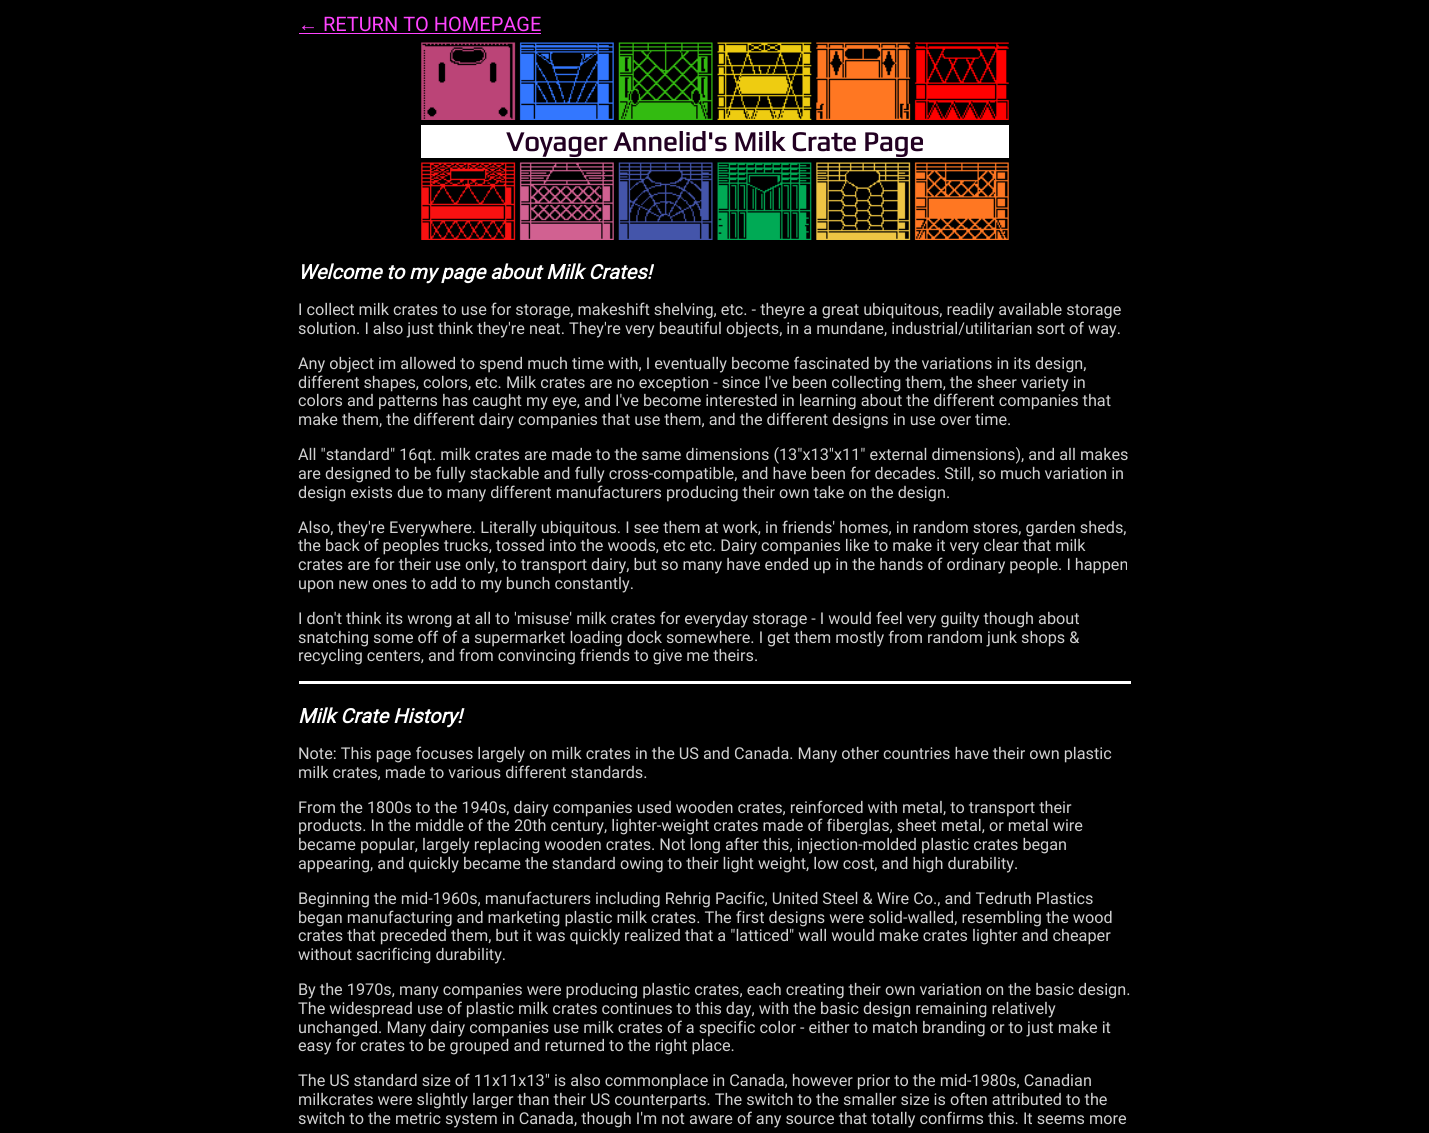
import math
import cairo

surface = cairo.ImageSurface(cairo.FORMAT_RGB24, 1429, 1133)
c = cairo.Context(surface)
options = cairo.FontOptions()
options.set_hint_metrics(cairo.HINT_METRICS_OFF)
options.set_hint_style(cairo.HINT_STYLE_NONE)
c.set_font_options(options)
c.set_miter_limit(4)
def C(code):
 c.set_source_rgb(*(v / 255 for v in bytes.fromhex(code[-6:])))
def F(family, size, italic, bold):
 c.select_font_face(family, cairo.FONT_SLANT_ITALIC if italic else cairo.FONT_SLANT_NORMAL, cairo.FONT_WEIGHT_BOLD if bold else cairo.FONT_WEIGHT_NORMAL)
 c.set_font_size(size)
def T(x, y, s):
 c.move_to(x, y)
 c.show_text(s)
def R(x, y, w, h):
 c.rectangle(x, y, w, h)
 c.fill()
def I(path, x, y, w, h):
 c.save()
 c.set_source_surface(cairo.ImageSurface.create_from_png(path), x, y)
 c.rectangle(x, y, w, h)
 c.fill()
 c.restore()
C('000000')
c.paint()
F('Liberation Sans',20,0,0)
C('ff44ff')
T(298,31,'←')
R(299,33,242,1)
F('Roboto',20,0,0)
T(323,31,'RETURN TO HOMEPAGE')
I('1.png',421,42,588,78)
C('ffffff')
R(421,125,588,33)
F('Play',27.5,0,1)
C('220022')
T(506,151,'Voyager Annelid\'s Milk Crate Page')
I('2.png',421,162,588,78)
F('Roboto',20,1,1)
C('ffffff')
T(298,279,'Welcome to my page about Milk Crates!')
F('Roboto',16.25,0,0)
C('d0d0d0')
T(298,315,'I collect milk crates to use for storage, makeshift shelving, etc. - theyre a great ubiquitous, readily available storage')
T(298,334,'solution. I also just think they\'re neat. They\'re very beautiful objects, in a mundane, industrial/utilitarian sort of way.')
T(298,369,'Any object im allowed to spend much time with, I eventually become fascinated by the variations in its design,')
T(298,388,'different shapes, colors, etc. Milk crates are no exception - since I\'ve been collecting them, the sheer variety in')
T(298,406,'colors and patterns has caught my eye, and I\'ve become interested in learning about the different companies that')
T(298,425,'make them, the different dairy companies that use them, and the different designs in use over time.')
T(298,460,'All "standard" 16qt. milk crates are made to the same dimensions (13"x13"x11" external dimensions), and all makes')
T(298,479,'are designed to be fully stackable and fully cross-compatible, and have been for decades. Still, so much variation in')
T(298,498,'design exists due to many different manufacturers producing their own take on the design.')
T(298,533,'Also, they\'re Everywhere. Literally ubiquitous. I see them at work, in friends\' homes, in random stores, garden sheds,')
T(298,551,'the back of peoples trucks, tossed into the woods, etc etc. Dairy companies like to make it very clear that milk')
T(298,570,'crates are for their use only, to transport dairy, but so many have ended up in the hands of ordinary people. I happen')
T(298,589,'upon new ones to add to my bunch constantly.')
T(298,624,'I don\'t think its wrong at all to \'misuse\' milk crates for everyday storage - I would feel very guilty though about')
T(298,643,'snatching some off of a supermarket loading dock somewhere. I get them mostly from random junk shops &')
T(298,661,'recycling centers, and from convincing friends to give me theirs.')
C('ffffff')
R(299,681,832,3)
F('Roboto',20,1,1)
T(298,723,'Milk Crate History!')
F('Roboto',16.25,0,0)
C('d0d0d0')
T(298,759,'Note: This page focuses largely on milk crates in the US and Canada. Many other countries have their own plastic')
T(298,778,'milk crates, made to various different standards.')
T(298,813,'From the 1800s to the 1940s, dairy companies used wooden crates, reinforced with metal, to transport their')
T(298,831,'products. In the middle of the 20th century, lighter-weight crates made of fiberglas, sheet metal, or metal wire')
T(298,850,'became popular, largely replacing wooden crates. Not long after this, injection-molded plastic crates began')
T(298,869,'appearing, and quickly became the standard owing to their light weight, low cost, and high durability.')
T(298,904,'Beginning the mid-1960s, manufacturers including Rehrig Pacific, United Steel & Wire Co., and Tedruth Plastics')
T(298,923,'began manufacturing and marketing plastic milk crates. The first designs were solid-walled, resembling the wood')
T(298,941,'crates that preceded them, but it was quickly realized that a "latticed" wall would make crates lighter and cheaper')
T(298,960,'without sacrificing durability.')
T(298,995,'By the 1970s, many companies were producing plastic crates, each creating their own variation on the basic design.')
T(298,1014,'The widespread use of plastic milk crates continues to this day, with the basic design remaining relatively')
T(298,1033,'unchanged. Many dairy companies use milk crates of a specific color - either to match branding or to just make it')
T(298,1051,'easy for crates to be grouped and returned to the right place.')
T(298,1086,'The US standard size of 11x11x13" is also commonplace in Canada, however prior to the mid-1980s, Canadian')
T(298,1105,'milkcrates were slightly larger than their US counterparts. The switch to the smaller size is often attributed to the')
T(298,1124,'switch to the metric system in Canada, though I\'m not aware of any source that totally confirms this. It seems more')
surface.write_to_png('o.png')
